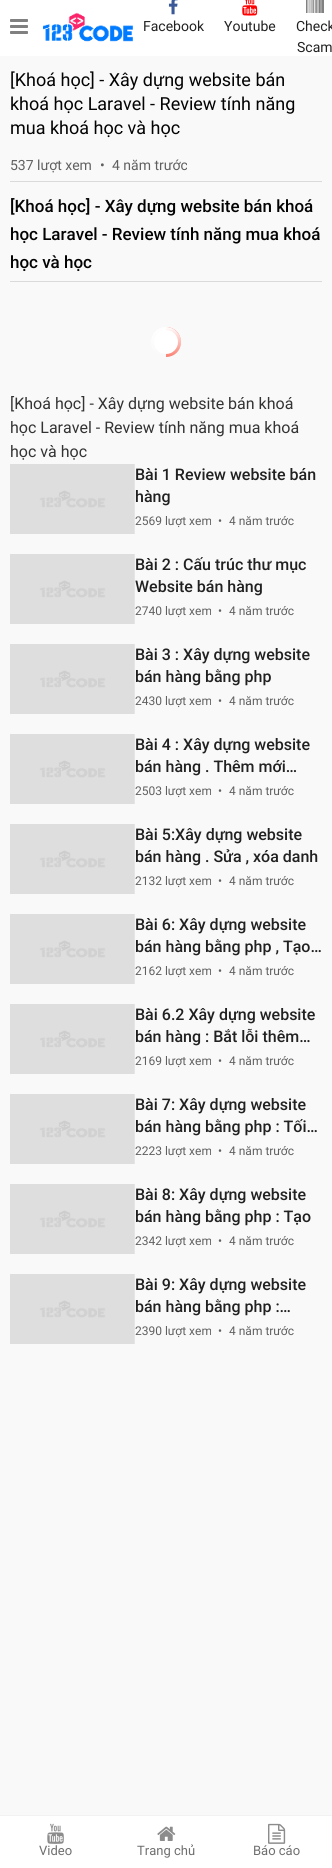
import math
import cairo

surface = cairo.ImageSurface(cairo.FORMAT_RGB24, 332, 1868)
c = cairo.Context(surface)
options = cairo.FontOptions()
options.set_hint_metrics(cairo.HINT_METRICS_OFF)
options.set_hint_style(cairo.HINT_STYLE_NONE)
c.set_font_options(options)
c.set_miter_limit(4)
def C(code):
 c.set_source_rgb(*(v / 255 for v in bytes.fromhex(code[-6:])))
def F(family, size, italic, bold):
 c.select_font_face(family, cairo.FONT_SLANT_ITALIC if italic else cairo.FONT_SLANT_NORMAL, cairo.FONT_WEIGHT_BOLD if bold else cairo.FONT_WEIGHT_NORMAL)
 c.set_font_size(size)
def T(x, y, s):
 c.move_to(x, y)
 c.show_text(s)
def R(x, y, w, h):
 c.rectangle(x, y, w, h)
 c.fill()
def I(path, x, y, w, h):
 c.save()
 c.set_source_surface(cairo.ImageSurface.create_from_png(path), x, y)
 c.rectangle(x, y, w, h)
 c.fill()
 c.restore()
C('f9f9f9')
c.paint()
C('ffffff')
R(0,0,332,56)
I('1.png',10,19,18,15)
I('2.png',43,12,90,30)
I('3.png',168,0,10,15)
F('Roboto',14,0,0)
C('212121')
T(143,31,'Facebook')
I('4.png',242,0,16,16)
T(224,31,'Youtube')
I('5.png',306,0,18,13)
T(296,31,'Check')
T(297,52,'Scam')
F('Roboto',18,0,0)
C('030303')
T(10,86,'[Khoá học] - Xây dựng website bán')
T(10,110,'khoá học Laravel - Review tính năng')
T(10,134,'mua khoá học và học')
C('dadada')
R(10,181,312,1)
F('Roboto',14,0,0)
C('606060')
T(10,170,'537 lượt xem')
T(100,170,'•')
T(112,170,'4 năm trước')
C('dadada')
R(10,281,312,1)
F('Roboto Medium',17,0,0)
C('030303')
T(10,212,'[Khoá học] - Xây dựng website bán khoá')
T(10,240,'học Laravel - Review tính năng mua khoá')
T(10,268,'học và học')
C('fa8072')
c.new_path()
c.move_to(166,327)
c.curve_to(174.5,327,181,333.5,181,342)
c.curve_to(181,350.5,174.5,357,166,357)
c.close_path()
c.fill()
gradient = cairo.LinearGradient(166,357,166,327)
gradient.add_color_stop_rgba(0,1,1,1,0)
gradient.add_color_stop_rgba(1,1,1,1,1)
c.set_source(gradient)
c.arc(166,342,15,0,2 * math.pi)
c.fill()
C('ffffff')
c.arc(166,342,12,0,2 * math.pi)
c.fill()
F('Roboto',16,0,0)
C('333333')
T(10,409,'[Khoá học] - Xây dựng website bán khoá')
T(10,433,'học Laravel - Review tính năng mua khoá')
T(10,457,'học và học')
I('6.png',10,464,125,70)
F('Roboto Medium',16,0,0)
C('212121')
T(135,480,'Bài 1 Review website bán')
T(135,502,'hàng')
F('Roboto',12,0,0)
C('606060')
T(135,525,'2569 lượt xem')
T(218,525,'•')
T(229,525,'4 năm trước')
I('6.png',10,554,125,70)
F('Roboto Medium',16,0,0)
C('212121')
T(135,570,'Bài 2 : Cấu trúc thư mục')
T(135,592,'Website bán hàng')
F('Roboto',12,0,0)
C('606060')
T(135,615,'2740 lượt xem')
T(218,615,'•')
T(229,615,'4 năm trước')
I('6.png',10,644,125,70)
F('Roboto Medium',16,0,0)
C('212121')
T(135,660,'Bài 3 : Xây dựng website')
T(135,682,'bán hàng bằng php')
F('Roboto',12,0,0)
C('606060')
T(135,705,'2430 lượt xem')
T(218,705,'•')
T(229,705,'4 năm trước')
I('6.png',10,734,125,70)
F('Roboto Medium',16,0,0)
C('212121')
T(135,750,'Bài 4 : Xây dựng website')
T(135,772,'bán hàng . Thêm mới…')
F('Roboto',12,0,0)
C('606060')
T(135,795,'2503 lượt xem')
T(218,795,'•')
T(229,795,'4 năm trước')
I('6.png',10,824,125,70)
F('Roboto Medium',16,0,0)
C('212121')
T(135,840,'Bài 5:Xây dựng website')
T(135,862,'bán hàng . Sửa , xóa danh')
F('Roboto',12,0,0)
C('606060')
T(135,885,'2132 lượt xem')
T(218,885,'•')
T(229,885,'4 năm trước')
I('6.png',10,914,125,70)
F('Roboto Medium',16,0,0)
C('212121')
T(135,930,'Bài 6: Xây dựng website')
T(135,952,'bán hàng bằng php , Tạo…')
F('Roboto',12,0,0)
C('606060')
T(135,975,'2162 lượt xem')
T(218,975,'•')
T(229,975,'4 năm trước')
I('6.png',10,1004,125,70)
F('Roboto Medium',16,0,0)
C('212121')
T(135,1020,'Bài 6.2 Xây dựng website')
T(135,1042,'bán hàng : Bắt lỗi thêm…')
F('Roboto',12,0,0)
C('606060')
T(135,1065,'2169 lượt xem')
T(218,1065,'•')
T(229,1065,'4 năm trước')
I('6.png',10,1094,125,70)
F('Roboto Medium',16,0,0)
C('212121')
T(135,1110,'Bài 7: Xây dựng website')
T(135,1132,'bán hàng bằng php : Tối…')
F('Roboto',12,0,0)
C('606060')
T(135,1155,'2223 lượt xem')
T(218,1155,'•')
T(229,1155,'4 năm trước')
I('6.png',10,1184,125,70)
F('Roboto Medium',16,0,0)
C('212121')
T(135,1200,'Bài 8: Xây dựng website')
T(135,1222,'bán hàng bằng php : Tạo')
F('Roboto',12,0,0)
C('606060')
T(135,1245,'2342 lượt xem')
T(218,1245,'•')
T(229,1245,'4 năm trước')
I('6.png',10,1274,125,70)
F('Roboto Medium',16,0,0)
C('212121')
T(135,1290,'Bài 9: Xây dựng website')
T(135,1312,'bán hàng bằng php :…')
F('Roboto',12,0,0)
C('606060')
T(135,1335,'2390 lượt xem')
T(218,1335,'•')
T(229,1335,'4 năm trước')
C('ffffff')
R(0,1816,332,52)
C('f2f2f2')
R(0,1815,332,1)
I('7.png',47,1823,17,21)
F('Roboto',13,0,0)
C('6f6f6f')
T(39,1855,'Video')
I('8.png',157,1826,19,15)
T(137,1855,'Trang chủ')
I('9.png',268,1823,18,21)
T(253,1855,'Báo cáo')
surface.write_to_png('o.png')
